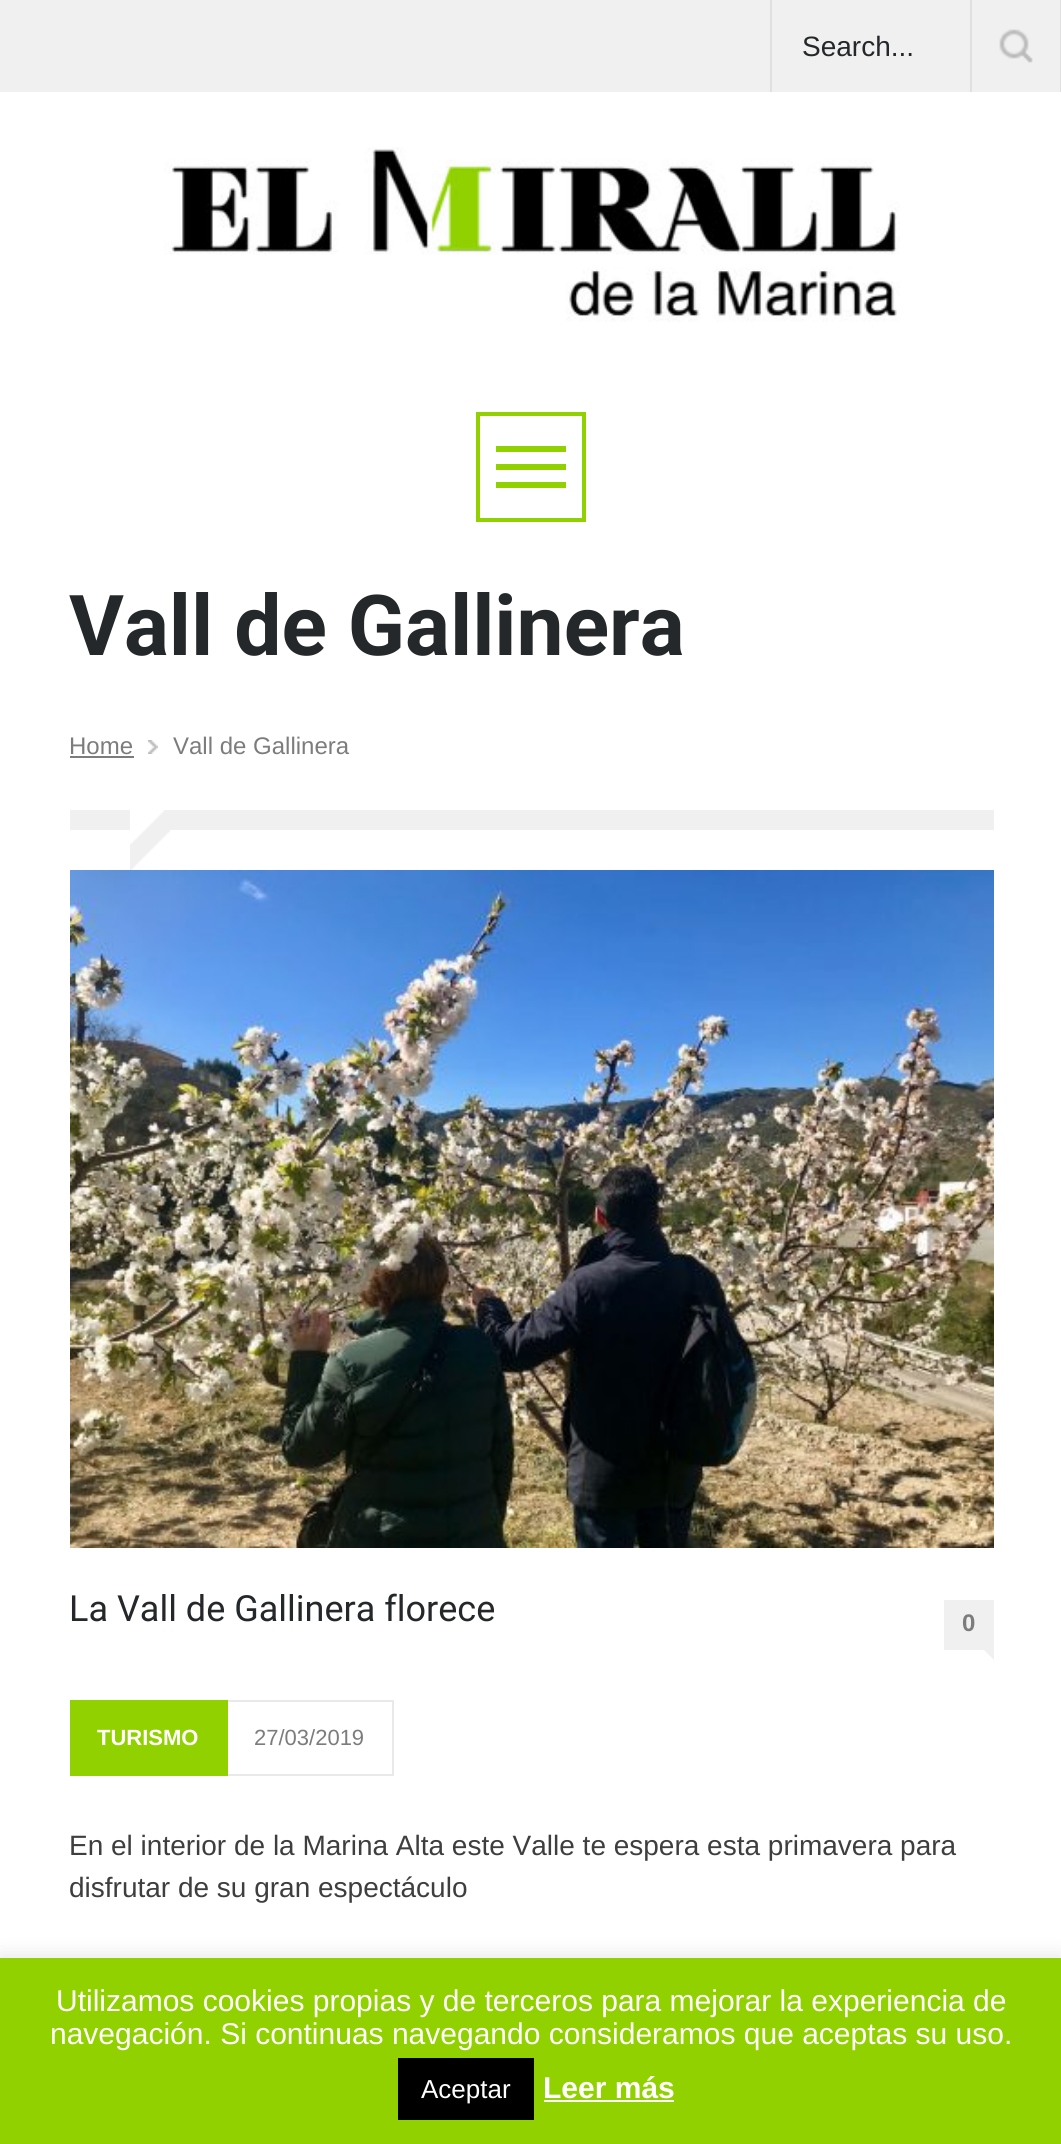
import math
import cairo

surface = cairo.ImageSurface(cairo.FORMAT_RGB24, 1061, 2144)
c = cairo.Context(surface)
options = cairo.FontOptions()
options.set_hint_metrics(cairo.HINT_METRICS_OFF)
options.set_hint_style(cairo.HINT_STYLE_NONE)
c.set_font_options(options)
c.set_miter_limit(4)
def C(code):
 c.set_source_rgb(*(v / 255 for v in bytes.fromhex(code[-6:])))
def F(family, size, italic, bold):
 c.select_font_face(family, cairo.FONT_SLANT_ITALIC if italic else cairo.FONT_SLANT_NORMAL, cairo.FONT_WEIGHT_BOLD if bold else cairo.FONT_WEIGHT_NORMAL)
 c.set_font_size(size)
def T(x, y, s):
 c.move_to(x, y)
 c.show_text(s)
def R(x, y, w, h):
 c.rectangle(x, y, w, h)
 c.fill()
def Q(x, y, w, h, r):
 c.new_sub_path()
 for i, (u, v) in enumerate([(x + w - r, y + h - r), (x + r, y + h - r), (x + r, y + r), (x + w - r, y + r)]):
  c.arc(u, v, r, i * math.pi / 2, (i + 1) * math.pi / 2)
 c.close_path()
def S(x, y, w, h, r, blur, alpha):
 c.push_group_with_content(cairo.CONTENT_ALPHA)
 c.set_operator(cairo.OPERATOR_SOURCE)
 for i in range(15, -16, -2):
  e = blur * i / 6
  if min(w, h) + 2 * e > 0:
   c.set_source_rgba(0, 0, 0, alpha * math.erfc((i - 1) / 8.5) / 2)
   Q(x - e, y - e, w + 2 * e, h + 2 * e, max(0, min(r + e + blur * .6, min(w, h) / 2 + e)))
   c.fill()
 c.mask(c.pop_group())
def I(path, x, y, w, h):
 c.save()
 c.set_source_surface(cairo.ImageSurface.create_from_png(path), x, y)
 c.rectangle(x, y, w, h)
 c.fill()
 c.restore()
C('ffffff')
c.paint()
C('f0f0f0')
R(0,0,1060,92)
C('e0e0e0')
R(1060,0,1,92)
R(770,0,2,92)
R(970,0,2,92)
F('Liberation Sans',28,0,0)
C('25282a')
T(802,56,'Search...')
I('1.png',999,29,34,34)
I('2.png',164,147,736,175)
c.rectangle(478,414,106,106)
C('92d100')
c.set_line_width(4)
c.stroke()
R(496,446,70,6)
R(496,464,70,6)
R(496,482,70,6)
F('Roboto',84,0,1)
C('25282a')
T(69,655,'Vall de Gallinera')
F('Liberation Sans',24,0,0)
C('7c7c7c')
T(69,754,'Home')
R(70,756,64,2)
I('3.png',148,740,10,14)
T(173,754,'Vall de Gallinera')
C('f0f0f0')
R(70,810,60,20)
I('4.png',130,810,40,60)
R(170,810,824,20)
I('5.png',70,870,924,678)
F('Roboto',36,0,0)
C('25282a')
T(69,1621,'La Vall de Gallinera florece')
C('f0f0f0')
R(944,1600,50,50)
F('Liberation Sans',24,0,1)
C('7c7c7c')
T(962,1631,'0')
C('f0f0f0')
c.new_path()
c.move_to(984,1650)
c.line_to(994,1650)
c.line_to(994,1660)
c.close_path()
c.fill()
C('92d100')
R(70,1700,158,76)
F('Liberation Sans',22,0,1)
C('ffffff')
T(97,1745,'TURISMO')
C('e9e9e9')
R(228,1700,166,2)
R(392,1700,2,76)
R(228,1774,166,2)
F('Liberation Sans',22,0,0)
C('7c7c7c')
T(254,1745,'27/03/2019')
F('Liberation Sans',28,0,0)
C('3e3e3e')
T(69,1855,'En el interior de la Marina Alta este Valle te espera esta primavera para')
T(69,1897,'disfrutar de su gran espectáculo')
C('acabab')
S(0,1956,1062,186,0,10,.3)
C('91d100')
R(0,1958,1061,186)
F('Liberation Sans',30,0,0)
C('ffffff')
T(56,2011,'Utilizamos cookies propias y de terceros para mejorar la experiencia de')
T(50,2044,'navegación. Si continuas navegando consideramos que aceptas su uso.')
C('000000')
R(398,2058,136,62)
F('Liberation Sans',26,0,0)
C('ffffff')
T(421,2098,'Aceptar')
F('Liberation Sans',30,0,1)
T(543,2098,'Leer más')
R(544,2100,130,2)
surface.write_to_png('o.png')
